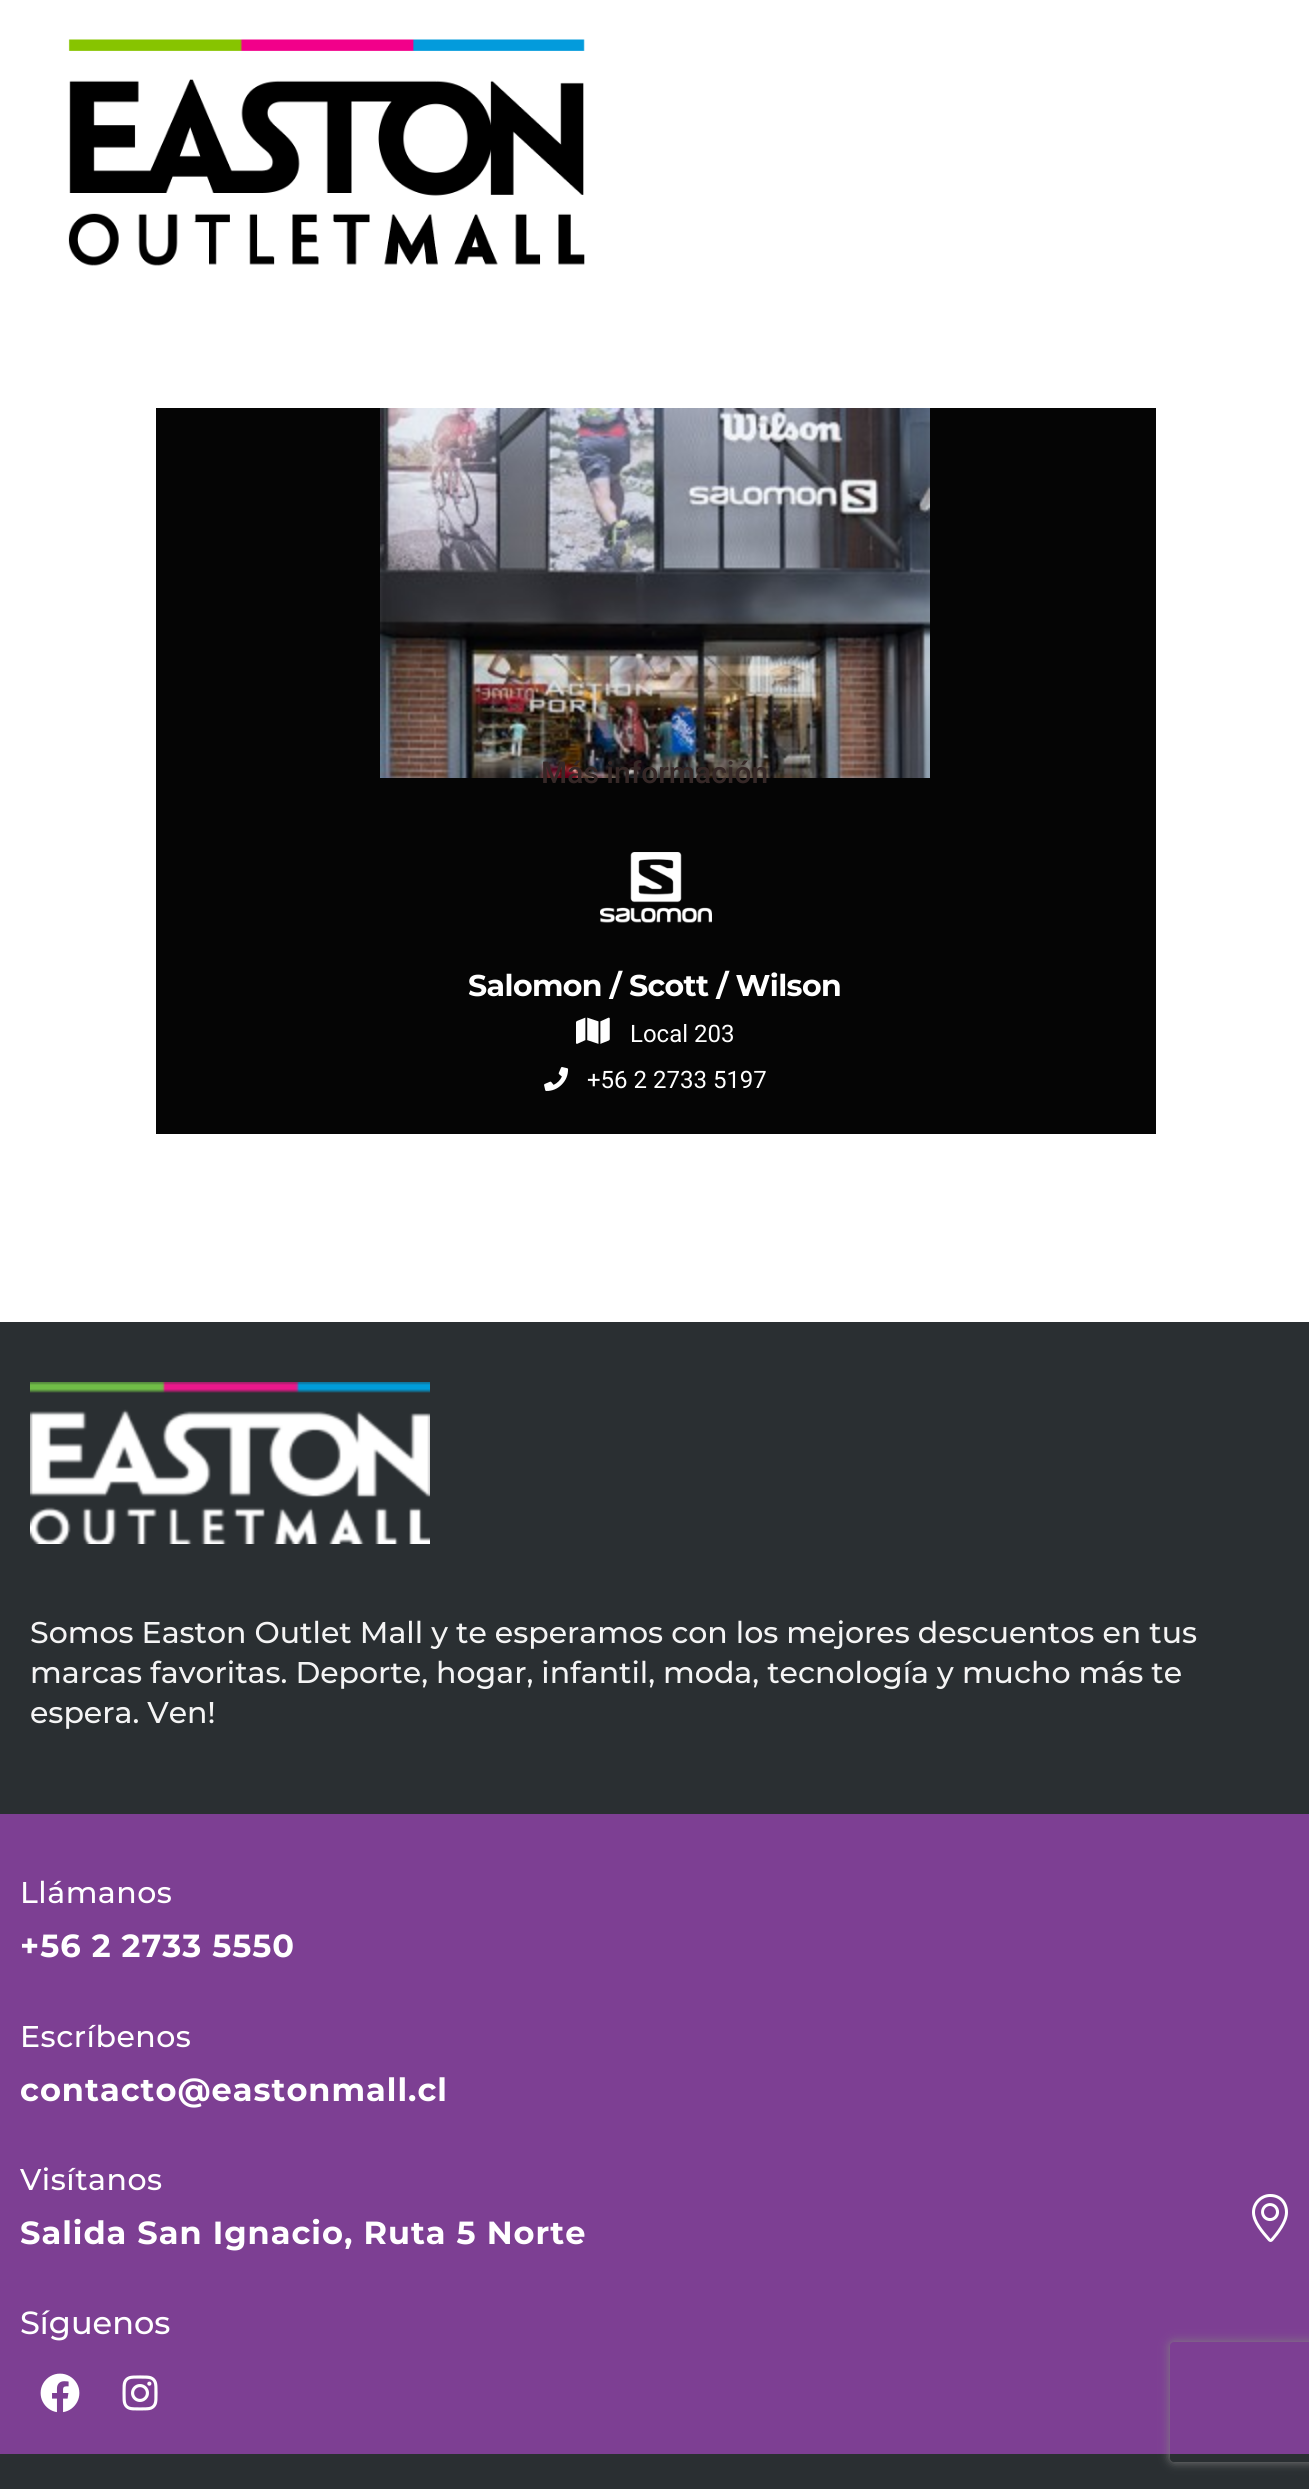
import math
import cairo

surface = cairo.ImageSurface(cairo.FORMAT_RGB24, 1309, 2489)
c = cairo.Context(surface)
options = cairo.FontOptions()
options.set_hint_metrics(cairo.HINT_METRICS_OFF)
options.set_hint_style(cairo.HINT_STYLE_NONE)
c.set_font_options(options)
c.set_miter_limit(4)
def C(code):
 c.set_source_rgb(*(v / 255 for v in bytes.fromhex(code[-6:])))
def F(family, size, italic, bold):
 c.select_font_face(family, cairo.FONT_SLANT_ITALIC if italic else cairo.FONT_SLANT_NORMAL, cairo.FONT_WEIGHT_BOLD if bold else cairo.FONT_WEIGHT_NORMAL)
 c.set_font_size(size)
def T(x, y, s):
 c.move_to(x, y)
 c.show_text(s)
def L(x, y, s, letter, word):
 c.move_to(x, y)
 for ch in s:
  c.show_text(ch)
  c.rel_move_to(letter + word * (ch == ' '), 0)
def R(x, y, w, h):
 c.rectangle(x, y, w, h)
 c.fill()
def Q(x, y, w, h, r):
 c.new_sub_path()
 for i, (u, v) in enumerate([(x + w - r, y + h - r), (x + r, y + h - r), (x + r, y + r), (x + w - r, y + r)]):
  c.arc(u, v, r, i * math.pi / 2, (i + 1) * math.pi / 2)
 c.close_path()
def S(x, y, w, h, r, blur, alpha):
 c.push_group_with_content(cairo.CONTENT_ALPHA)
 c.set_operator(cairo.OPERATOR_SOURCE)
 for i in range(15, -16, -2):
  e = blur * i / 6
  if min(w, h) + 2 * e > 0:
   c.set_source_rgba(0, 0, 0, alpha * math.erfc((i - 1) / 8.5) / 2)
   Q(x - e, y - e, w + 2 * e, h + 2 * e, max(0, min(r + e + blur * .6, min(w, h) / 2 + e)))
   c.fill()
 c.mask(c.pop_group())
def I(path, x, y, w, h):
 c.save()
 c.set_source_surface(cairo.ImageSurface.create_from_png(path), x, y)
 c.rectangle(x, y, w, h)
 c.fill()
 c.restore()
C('ffffff')
c.paint()
I('1.png',68,39,517,227)
C('050505')
R(156,408,1000,726)
I('2.png',380,408,550,370)
F('Roboto Medium',30,0,0)
C('362827')
T(541,783,'Más información')
I('3.png',600,852,112,71)
F('Montserrat',30,0,1)
C('ffffff')
L(468,996,'Salomon / Scott / Wilson',-.6,0)
I('4.png',576,1017,34,27)
F('Roboto',24,0,0)
T(630,1042,'Local 203')
I('5.png',544,1067,25,24)
T(587,1088,'+56 2 2733 5197')
C('2a2f32')
R(0,1322,1309,1167)
I('6.png',30,1382,400,162)
F('Montserrat Medium',30,0,0)
C('f4f4f4')
T(30,1643,'Somos Easton Outlet Mall y te esperamos con los mejores descuentos en tus')
T(30,1683,'marcas favoritas. Deporte, hogar, infantil, moda, tecnología y mucho más te')
T(30,1723,'espera. Ven!')
C('7d3f93')
R(0,1814,1309,640)
C('ffffff')
L(20,1903,'Llámanos',.5,0)
F('Montserrat',32,0,1)
L(20,1957,'+56 2 2733 5550',1,0)
F('Montserrat Medium',30,0,0)
L(20,2047,'Escríbenos',.5,0)
F('Montserrat',32,0,1)
L(20,2101,'contacto@eastonmall.cl',1,0)
F('Montserrat Medium',30,0,0)
L(20,2190,'Visítanos',.5,0)
F('Montserrat',32,0,1)
L(20,2244,'Salida San Ignacio, Ruta 5 Norte',1,0)
F('Montserrat Medium',32,0,0)
T(20,2334,'Síguenos')
I('7.png',40,2373,40,40)
I('8.png',122,2375,36,36)
I('9.png',1252,2194,36,48)
c.save()
c.set_fill_rule(cairo.FILL_RULE_EVEN_ODD)
c.new_path()
c.move_to(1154,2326)
c.line_to(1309,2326)
c.line_to(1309,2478)
c.line_to(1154,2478)
c.close_path()
c.move_to(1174,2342)
c.line_to(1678,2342)
c.curve_to(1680,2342,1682,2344,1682,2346)
c.line_to(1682,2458)
c.curve_to(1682,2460,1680,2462,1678,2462)
c.line_to(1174,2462)
c.curve_to(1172,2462,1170,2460,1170,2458)
c.line_to(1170,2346)
c.curve_to(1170,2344,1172,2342,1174,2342)
c.close_path()
c.clip()
C('808080')
S(1170,2342,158,120,4,5,1)
c.restore()
surface.write_to_png('o.png')
